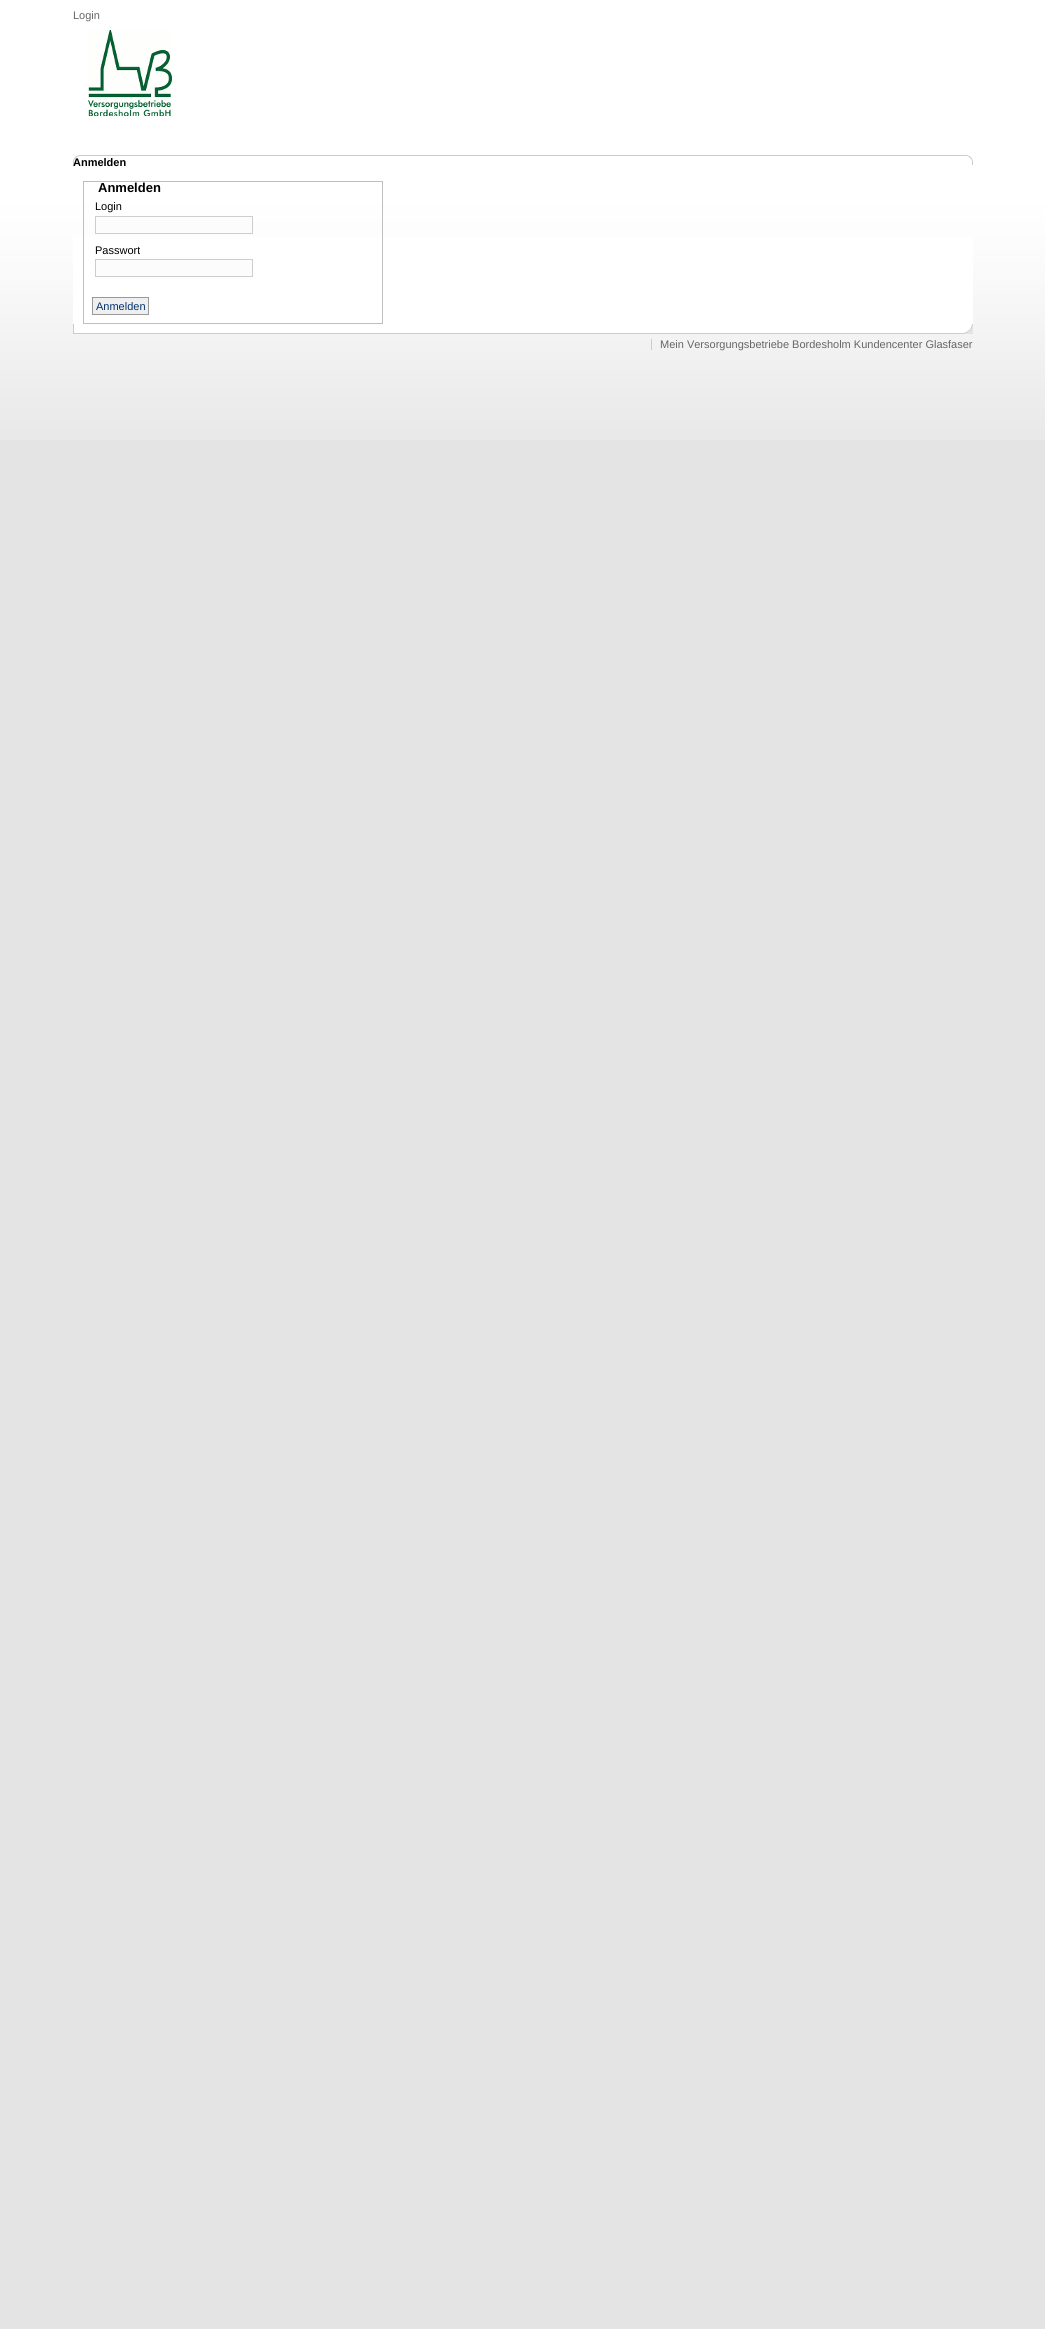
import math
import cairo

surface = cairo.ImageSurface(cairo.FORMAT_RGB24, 1045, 2329)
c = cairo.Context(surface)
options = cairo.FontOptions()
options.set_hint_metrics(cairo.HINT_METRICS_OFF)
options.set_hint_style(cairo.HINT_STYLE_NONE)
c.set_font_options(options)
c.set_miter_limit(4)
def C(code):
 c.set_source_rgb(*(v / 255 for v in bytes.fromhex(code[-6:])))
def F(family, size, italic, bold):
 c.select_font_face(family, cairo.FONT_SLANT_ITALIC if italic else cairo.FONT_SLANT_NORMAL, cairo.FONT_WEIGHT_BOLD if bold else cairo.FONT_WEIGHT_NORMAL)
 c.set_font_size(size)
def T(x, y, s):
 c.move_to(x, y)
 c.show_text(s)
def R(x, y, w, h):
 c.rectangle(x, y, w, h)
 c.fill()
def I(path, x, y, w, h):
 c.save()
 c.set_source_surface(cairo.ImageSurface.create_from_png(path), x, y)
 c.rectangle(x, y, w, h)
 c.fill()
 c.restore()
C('e4e4e4')
c.paint()
I('1.png',0,0,1045,440)
F('Liberation Sans',11,0,0)
C('666666')
T(73,19,'Login')
I('2.png',88,30,84,86)
C('ffffff')
R(73,237,900,87)
I('3.png',73,324,900,10)
I('4.png',73,155,900,10)
F('Liberation Sans',11,0,1)
C('000000')
T(73,166,'Anmelden')
c.rectangle(83.5,181.5,299,142)
C('bfbfbf')
c.set_line_width(1)
c.stroke()
F('Liberation Sans',13,0,1)
C('000000')
T(98,192,'Anmelden')
F('Liberation Sans',11,0,0)
T(95,210,'Login')
C('fcfcfc')
c.rectangle(95.5,216.5,157,17)
c.fill_preserve()
C('cdcdcd')
c.stroke()
C('000000')
T(95,254,'Passwort')
C('fcfcfc')
c.rectangle(95.5,259.5,157,17)
c.fill_preserve()
C('cdcdcd')
c.stroke()
C('efefef')
c.rectangle(92.5,297.5,56,17)
c.fill_preserve()
C('999999')
c.stroke()
C('00336e')
T(96,310,'Anmelden')
C('cccccc')
R(651,339,1,11)
C('666666')
T(660,348,'Mein Versorgungsbetriebe Bordesholm Kundencenter Glasfaser')
surface.write_to_png('o.png')
